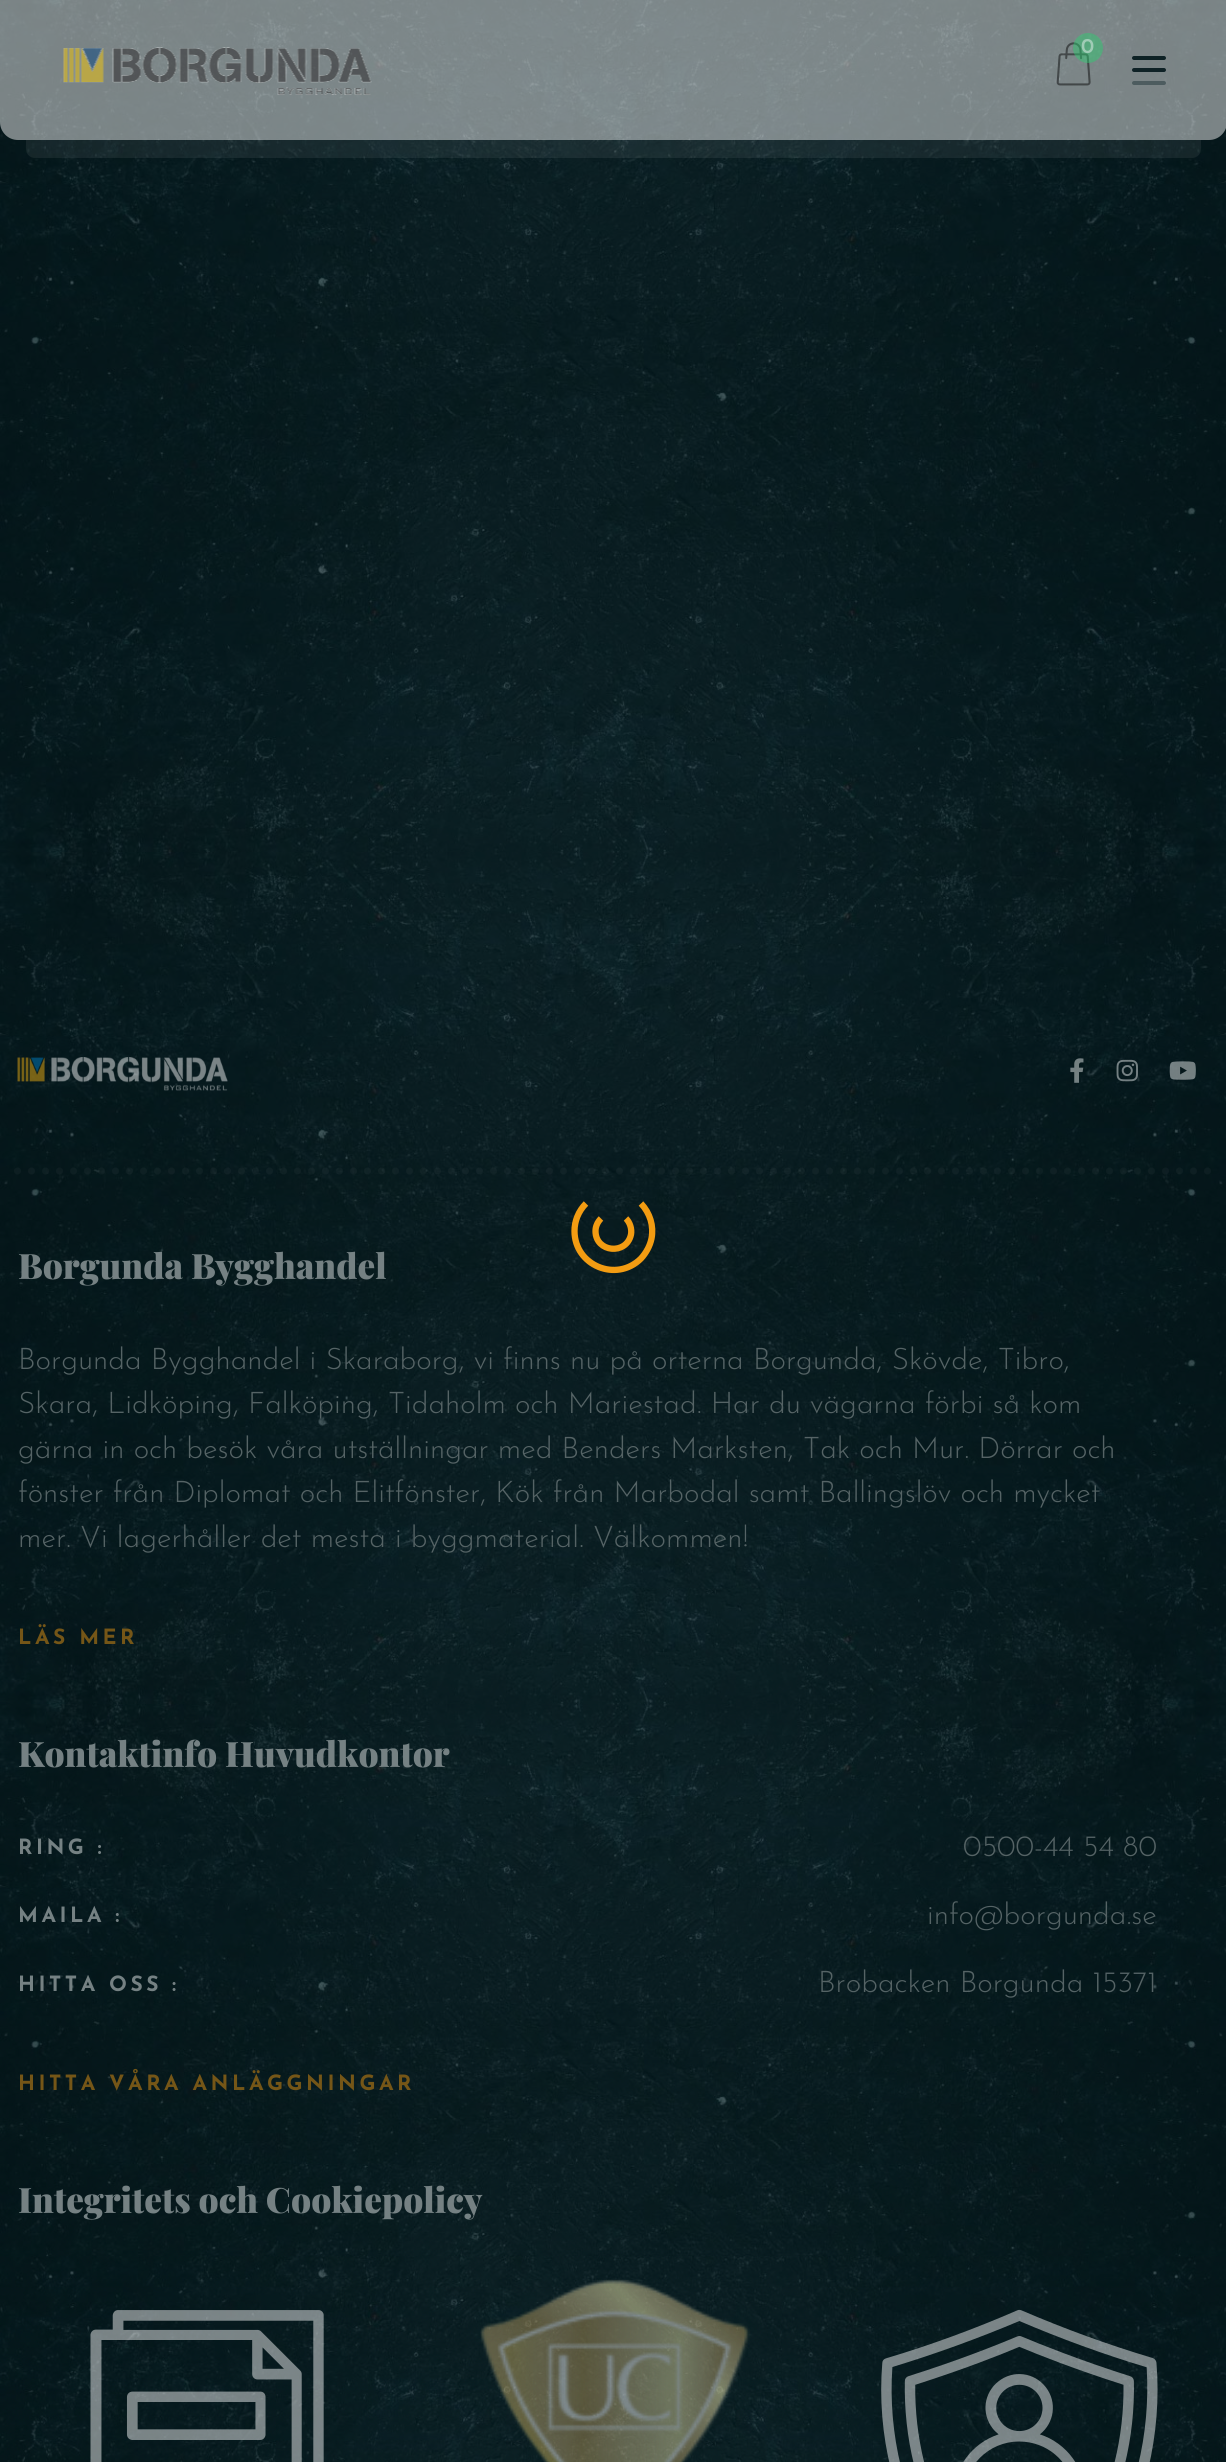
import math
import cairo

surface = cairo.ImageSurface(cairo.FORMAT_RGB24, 1226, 2462)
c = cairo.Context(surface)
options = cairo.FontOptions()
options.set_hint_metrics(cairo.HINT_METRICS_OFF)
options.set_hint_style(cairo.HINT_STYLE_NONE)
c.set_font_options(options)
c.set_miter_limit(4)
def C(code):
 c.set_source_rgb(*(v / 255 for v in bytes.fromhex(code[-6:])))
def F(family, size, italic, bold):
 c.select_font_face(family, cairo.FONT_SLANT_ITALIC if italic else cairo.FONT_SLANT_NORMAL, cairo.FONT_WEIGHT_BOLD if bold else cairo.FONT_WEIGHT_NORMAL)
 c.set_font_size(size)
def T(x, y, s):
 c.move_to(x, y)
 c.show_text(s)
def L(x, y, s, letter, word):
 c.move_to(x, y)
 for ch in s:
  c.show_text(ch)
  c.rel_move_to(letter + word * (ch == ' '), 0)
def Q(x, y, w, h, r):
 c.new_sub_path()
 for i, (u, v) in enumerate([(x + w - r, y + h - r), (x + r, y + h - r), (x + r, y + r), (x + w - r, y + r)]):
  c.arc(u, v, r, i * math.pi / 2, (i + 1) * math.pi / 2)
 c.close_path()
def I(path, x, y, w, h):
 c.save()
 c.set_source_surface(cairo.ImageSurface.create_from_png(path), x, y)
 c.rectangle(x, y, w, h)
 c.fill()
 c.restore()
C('ffffff')
c.paint()
I('1.png',0,0,1226,2462)
c.set_source_rgba(1,1,1,0.47)
c.new_path()
c.move_to(0,0)
c.line_to(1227,0)
c.line_to(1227,122)
c.curve_to(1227,132,1219,140,1209,140)
c.line_to(18,140)
c.curve_to(8,140,0,132,0,122)
c.close_path()
c.fill()
I('2.png',63,47,309,48)
I('3.png',1056,42,35,44)
c.set_source_rgba(0.18,0.8,0.443,0.47)
c.arc(1088,48,15,0,2 * math.pi)
c.fill()
F('Josefin Sans SemiBold',21,0,0)
C('a0ccb6')
T(1081,53,'0')
C('0f2226')
Q(1132,68,34,4,2)
c.fill()
C('0e2225')
Q(1132,56,34,4,2)
c.fill()
c.set_source_rgba(0.102,0.184,0.2,0.47)
Q(1132,81,34,4,2)
c.fill()
c.set_source_rgba(0.949,0.965,0.969,0.07)
c.new_path()
c.move_to(26,140)
c.line_to(1201,140)
c.line_to(1201,149)
c.curve_to(1201,154,1197,158,1192,158)
c.line_to(35,158)
c.curve_to(30,158,26,154,26,149)
c.close_path()
c.fill()
I('4.png',17,1057,211,34)
I('5.png',1070,1058,14,25)
I('6.png',1116,1059,22,23)
I('7.png',1169,1061,27,19)
c.new_path()
c.move_to(17.5,1171)
c.line_to(1209,1171)
c.set_source_rgba(0.949,0.965,0.969,0.04)
c.set_line_width(7)
c.set_line_cap(cairo.LINE_CAP_ROUND)
c.set_dash([0,14])
c.stroke()
F('Playfair Display Black',35,0,0)
C('758183')
T(18,1279,'Borgunda Bygghandel')
F('Josefin Sans Light',29.75,0,0)
C('556365')
T(18,1369,'Borgunda Bygghandel i Skaraborg, vi finns nu på orterna Borgunda, Skövde, Tibro,')
T(18,1413,'Skara, Lidköping, Falköping, Tidaholm och Mariestad. Har du vägarna förbi så kom')
T(18,1458,'gärna in och besök våra utställningar med Benders Marksten, Tak och Mur. Dörrar och')
T(18,1502,'fönster från Diplomat och Elitfönster, Kök från Marbodal samt Ballingslöv och mycket')
T(18,1547,'mer. Vi lagerhåller det mesta i byggmaterial. Välkommen!')
F('Josefin Sans',21,0,1)
C('755617')
L(18,1644,'LÄS MER',3.5,0)
F('Playfair Display Black',35,0,0)
C('758183')
T(18,1767,'Kontaktinfo Huvudkontor')
F('Josefin Sans',21,0,1)
L(18,1854,'RING :',3.5,0)
F('Josefin Sans Light',29.75,0,0)
C('556365')
T(963,1856,'0500-44 54 80')
F('Josefin Sans',21,0,1)
C('758183')
L(18,1922,'MAILA :',3.5,0)
F('Josefin Sans Light',29.75,0,0)
C('556365')
T(927,1924,'info@borgunda.se')
F('Josefin Sans',21,0,1)
C('758183')
L(18,1991,'HITTA OSS :',3.5,0)
F('Josefin Sans Light',29.75,0,0)
C('556365')
T(818,1992,'Brobacken Borgunda 15371')
F('Josefin Sans',21,0,1)
C('755617')
L(18,2090,'HITTA VÅRA ANLÄGGNINGAR',3.5,0)
F('Playfair Display Black',35,0,0)
C('758183')
T(18,2213,'Integritets och Cookiepolicy')
I('8.png',90,2310,234,152)
I('9.png',480,2279,270,183)
I('10.png',881,2309,277,153)
c.new_path()
c.move_to(641,1203.5)
c.curve_to(650,1213,654,1226,651.5,1238.5)
c.curve_to(650,1246,646,1253,641,1258.5)
c.curve_to(616.5,1283,574.5,1265.5,574.5,1231)
c.curve_to(574.5,1221,578.5,1211,586,1203.5)
C('f39c12')
c.set_line_width(6.3)
c.set_line_cap(cairo.LINE_CAP_BUTT)
c.set_dash([])
c.stroke()
c.new_path()
c.move_to(626,1218.5)
c.curve_to(630,1222.5,632,1229,631,1234.5)
c.curve_to(626.5,1255.5,595.5,1252.5,595.5,1231)
c.curve_to(595.5,1226.5,597.5,1222,601,1218.5)
c.stroke()
surface.write_to_png('o.png')
